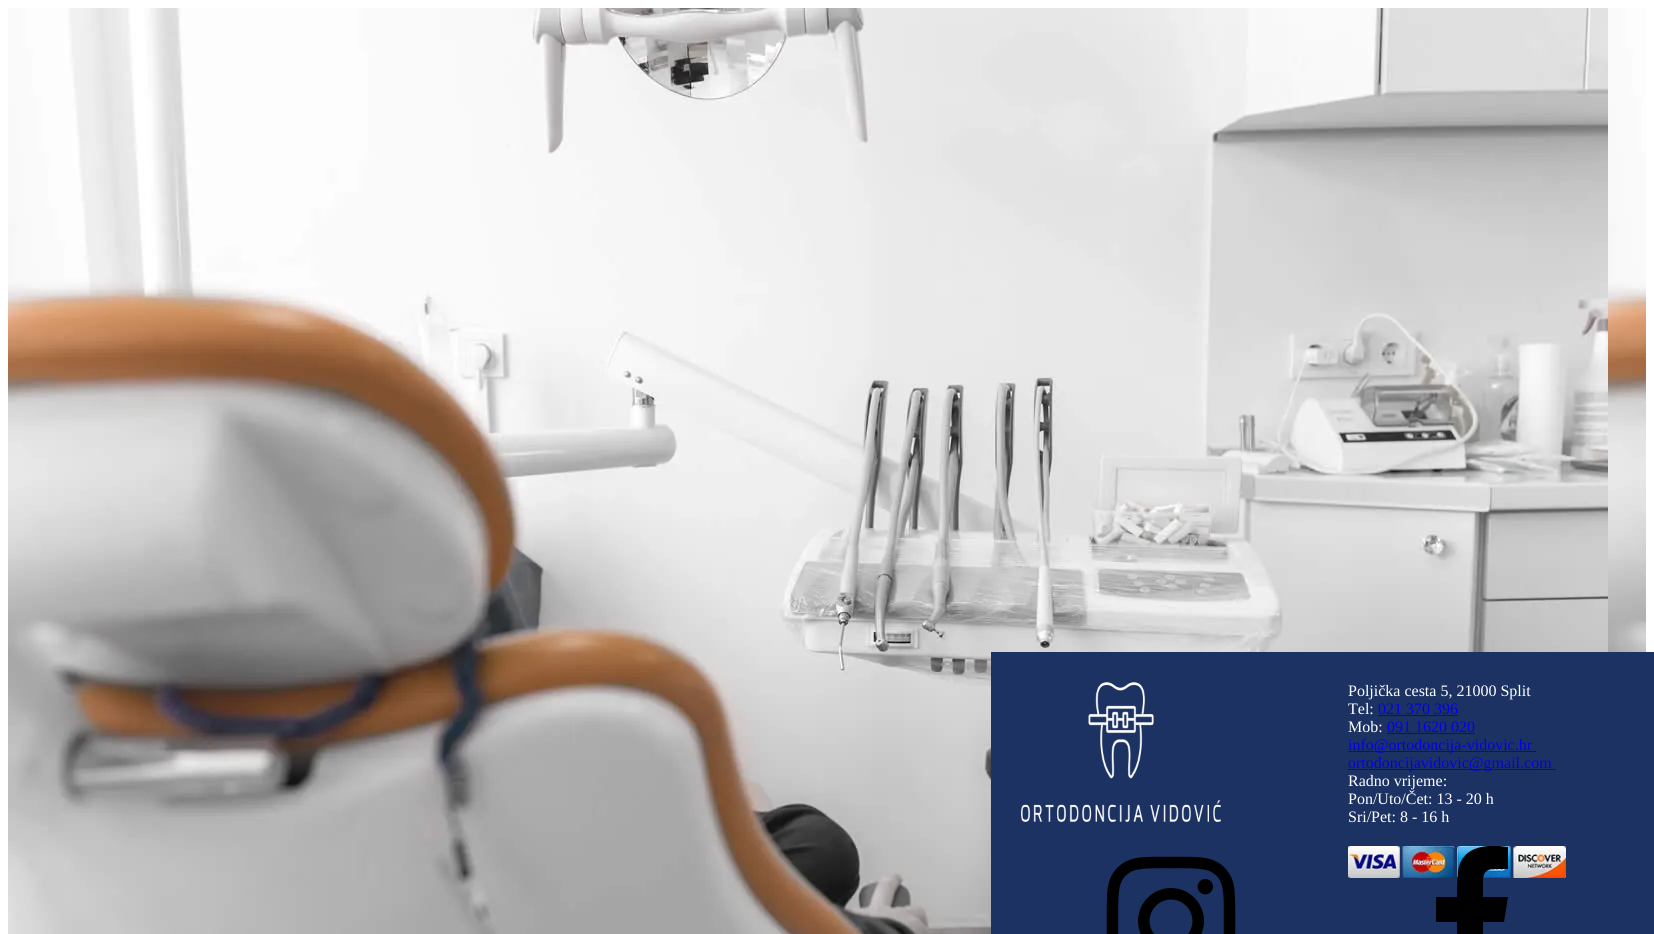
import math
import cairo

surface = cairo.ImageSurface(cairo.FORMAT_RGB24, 1654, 934)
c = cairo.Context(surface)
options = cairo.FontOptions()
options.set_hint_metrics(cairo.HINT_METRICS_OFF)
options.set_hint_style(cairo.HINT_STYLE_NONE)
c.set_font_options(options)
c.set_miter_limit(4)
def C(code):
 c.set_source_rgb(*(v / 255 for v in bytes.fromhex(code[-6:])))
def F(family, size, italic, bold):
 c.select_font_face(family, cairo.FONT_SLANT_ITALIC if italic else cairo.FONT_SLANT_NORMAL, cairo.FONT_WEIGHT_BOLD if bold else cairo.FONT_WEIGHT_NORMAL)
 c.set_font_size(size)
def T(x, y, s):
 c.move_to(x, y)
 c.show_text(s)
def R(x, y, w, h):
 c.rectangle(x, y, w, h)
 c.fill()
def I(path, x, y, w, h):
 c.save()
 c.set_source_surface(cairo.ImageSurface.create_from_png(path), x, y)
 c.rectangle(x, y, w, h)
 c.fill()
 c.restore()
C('ffffff')
c.paint()
I('1.png',8,8,1638,926)
C('1c3263')
R(991,652,663,282)
I('2.png',1021,682,200,140)
I('3.png',1106,856,130,78)
I('4.png',1348,846,218,32)
c.save()
c.rectangle(1321,846,300,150)
c.clip()
C('000000')
c.new_path()
c.move_to(1508,847)
c.line_to(1508,869)
c.line_to(1495,869)
c.curve_to(1485,869,1483,874,1483,881)
c.line_to(1483,897)
c.line_to(1508,897)
c.line_to(1504,922)
c.line_to(1483,922)
c.line_to(1483,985)
c.line_to(1457,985)
c.line_to(1457,922)
c.line_to(1436,922)
c.line_to(1436,897)
c.line_to(1457,897)
c.curve_to(1457,889,1457,880,1458,871)
c.curve_to(1462,845,1488,844,1508,847)
c.close_path()
c.fill()
c.restore()
F('Liberation Serif',16,0,0)
C('ffffff')
T(1348,696,'Poljička cesta 5, 21000 Split')
T(1348,714,'Tel:')
C('0000ee')
T(1378,714,'021 370 396')
R(1378,715,80,1)
C('ffffff')
T(1348,732,'Mob:')
C('0000ee')
T(1387,732,'091 1620 020')
R(1387,733,88,1)
R(1348,751,188,1)
T(1348,750,'info@ortodoncija-vidovic.hr')
R(1348,769,208,1)
T(1348,768,'ortodoncijavidovic@gmail.com')
C('ffffff')
T(1348,786,'Radno vrijeme:')
T(1348,804,'Pon/Uto/Čet: 13 - 20 h')
T(1348,822,'Sri/Pet: 8 - 16 h')
surface.write_to_png('o.png')
